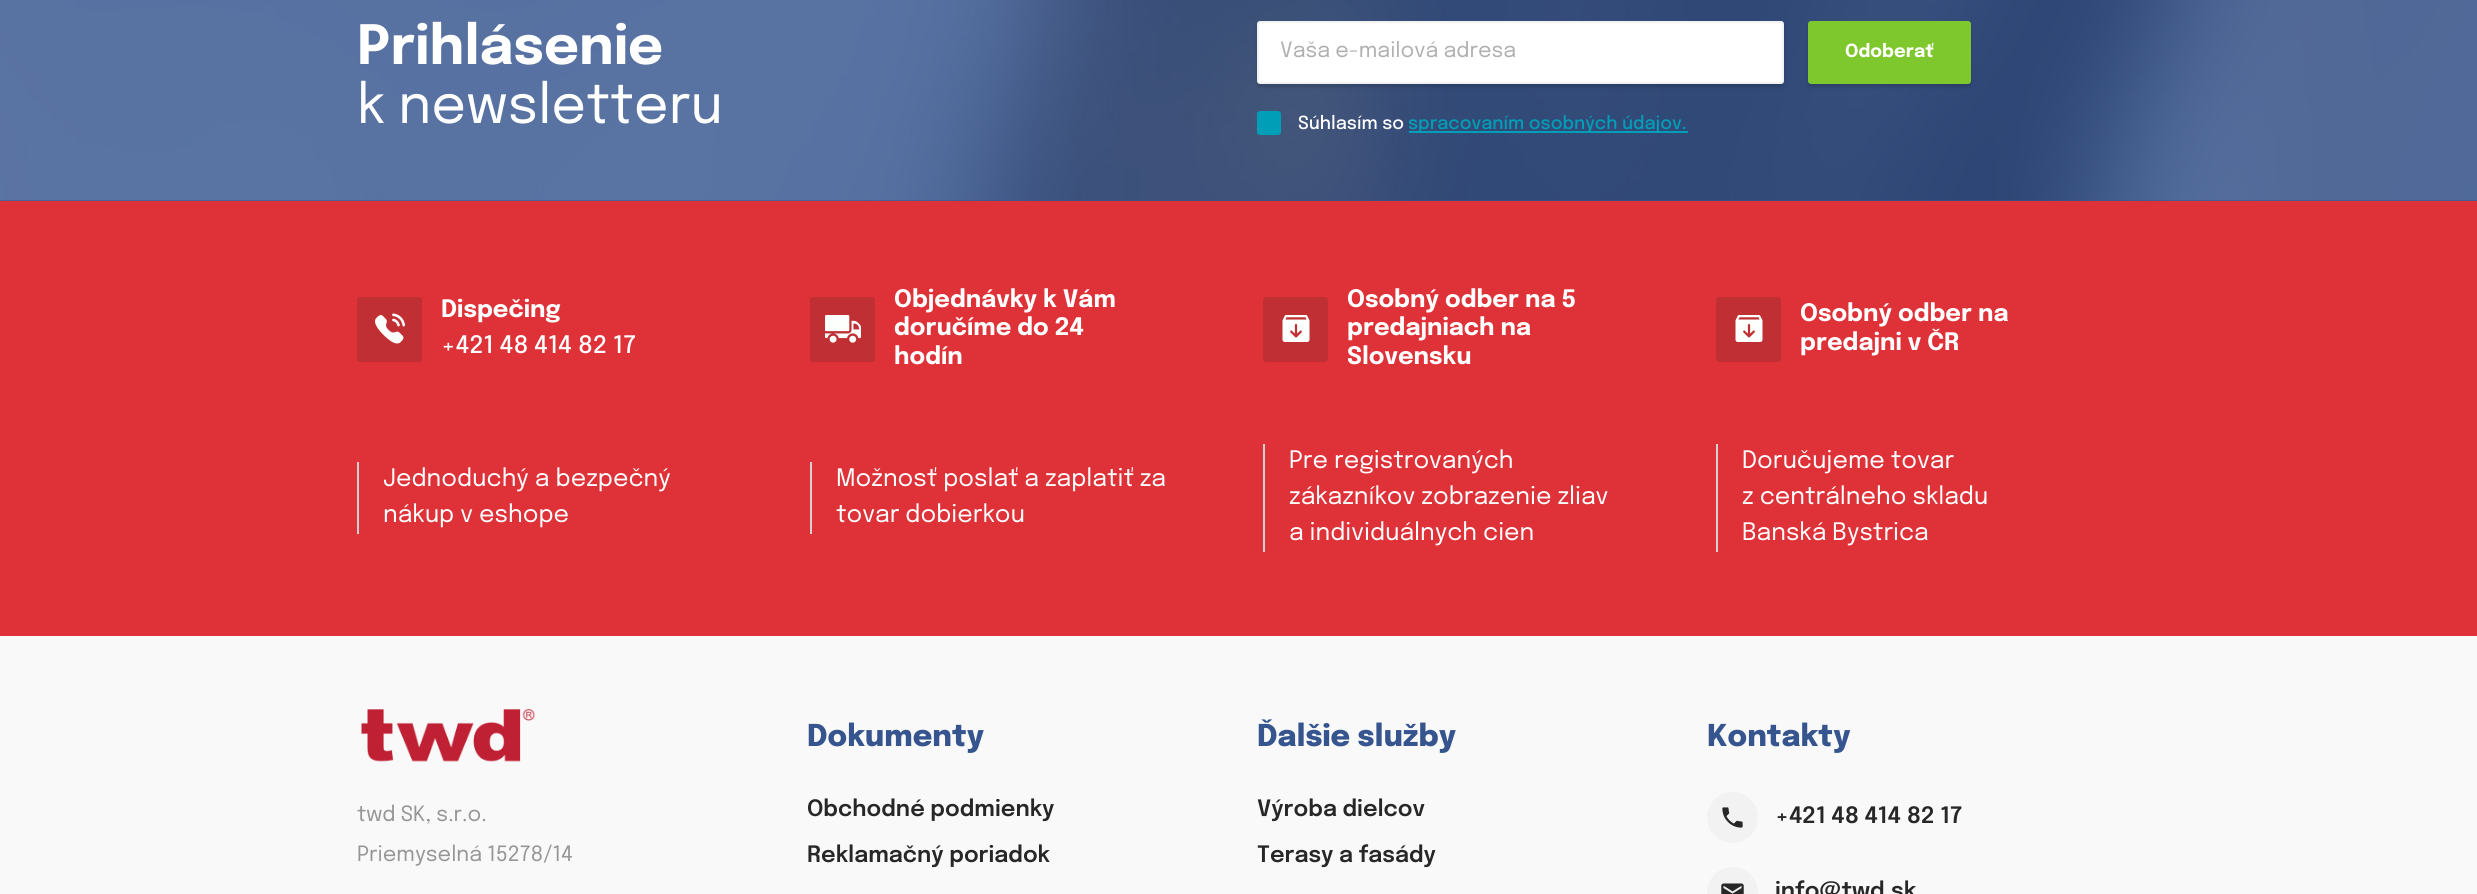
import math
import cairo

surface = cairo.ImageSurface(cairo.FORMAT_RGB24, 2477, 894)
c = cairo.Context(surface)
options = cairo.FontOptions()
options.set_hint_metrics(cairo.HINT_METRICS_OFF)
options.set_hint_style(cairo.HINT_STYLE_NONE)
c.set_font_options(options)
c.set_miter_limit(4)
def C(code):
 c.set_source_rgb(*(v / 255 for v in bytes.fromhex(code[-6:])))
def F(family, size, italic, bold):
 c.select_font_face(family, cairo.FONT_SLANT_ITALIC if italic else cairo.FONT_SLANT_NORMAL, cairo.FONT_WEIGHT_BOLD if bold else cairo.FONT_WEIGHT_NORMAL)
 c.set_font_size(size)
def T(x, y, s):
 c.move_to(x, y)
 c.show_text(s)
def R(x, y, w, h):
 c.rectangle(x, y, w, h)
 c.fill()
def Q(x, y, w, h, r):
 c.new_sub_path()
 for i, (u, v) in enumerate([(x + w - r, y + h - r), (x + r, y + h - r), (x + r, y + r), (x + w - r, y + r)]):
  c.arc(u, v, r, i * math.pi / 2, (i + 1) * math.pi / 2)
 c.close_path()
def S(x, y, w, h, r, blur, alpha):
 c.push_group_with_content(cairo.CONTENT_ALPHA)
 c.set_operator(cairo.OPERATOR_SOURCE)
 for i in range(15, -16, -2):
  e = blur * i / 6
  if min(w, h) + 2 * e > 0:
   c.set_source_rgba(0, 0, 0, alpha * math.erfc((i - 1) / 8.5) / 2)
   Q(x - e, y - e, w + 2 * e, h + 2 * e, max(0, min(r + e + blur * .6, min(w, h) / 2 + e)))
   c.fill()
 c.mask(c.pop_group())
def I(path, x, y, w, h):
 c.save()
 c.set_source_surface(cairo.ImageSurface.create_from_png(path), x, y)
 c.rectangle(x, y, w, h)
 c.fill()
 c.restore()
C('f9f9f9')
c.paint()
C('36558f')
R(0,200,2477,1)
I('1.png',0,0,2477,201)
F('Epilogue',54,0,1)
C('ffffff')
T(357,64,'Prihlásenie')
F('Epilogue',54,0,0)
T(357,123,'k newsletteru')
C('000000')
S(1257,24,527,63,3,1.5,.15)
C('ffffff')
Q(1258,22,525,61,2)
c.fill_preserve()
C('f2f2f2')
c.stroke()
c.save()
c.rectangle(1280,41,481,21)
c.clip()
F('Epilogue',21,0,0)
C('b0b0b0')
T(1280,57,'Vaša e-mailová adresa')
c.restore()
C('000000')
S(1808,24,163,63,3,1.5,.15)
C('7ec72c')
Q(1809,22,161,61,2)
c.fill_preserve()
c.stroke()
F('Epilogue',18,0,1)
C('ffffff')
T(1845,57,'Odoberať')
C('009fb7')
Q(1258.5,112.5,21,21,1.5)
c.fill_preserve()
c.set_line_width(3)
c.stroke()
F('Epilogue Medium',18,0,0)
C('ffffff')
T(1298,129,'Súhlasím so')
C('009fb7')
R(1409,131,279,2)
T(1408,129,'spracovaním osobných údajov.')
C('de3238')
R(0,201,2477,435)
C('bf2f34')
Q(357,297,65,65,3)
c.fill()
I('2.png',375,313,30,31)
F('Epilogue',24,0,1)
C('ffffff')
T(441,317,'Dispečing')
F('Epilogue Medium',24,0,0)
T(441,353,'+421 48 414 82 17')
C('bf2f34')
Q(810,297,65,65,3)
c.fill()
I('3.png',825,315,36,28)
F('Epilogue',24,0,1)
C('ffffff')
T(894,307,'Objednávky k Vám')
T(894,335,'doručíme do 24')
T(894,364,'hodín')
C('bf2f34')
Q(1263,297,65,65,3)
c.fill()
I('4.png',1282,315,28,27)
C('ffffff')
T(1347,307,'Osobný odber na 5')
T(1347,335,'predajniach na')
T(1347,364,'Slovensku')
C('bf2f34')
Q(1716,297,65,65,3)
c.fill()
I('4.png',1735,315,28,27)
C('ffffff')
T(1800,321,'Osobný odber na')
T(1800,350,'predajni v ČR')
C('d1d1d1')
R(357,462,2,72)
F('Epilogue',24,0,0)
C('ffffff')
T(383,486,'Jednoduchý a bezpečný')
T(383,522,'nákup v eshope')
C('d1d1d1')
R(810,462,2,72)
C('ffffff')
T(836,486,'Možnosť poslať a zaplatiť za')
T(836,522,'tovar dobierkou')
C('d1d1d1')
R(1263,444,2,108)
C('ffffff')
T(1289,468,'Pre registrovaných')
T(1289,504,'zákazníkov zobrazenie zliav')
T(1289,540,'a individuálnych cien')
C('d1d1d1')
R(1716,444,2,108)
C('ffffff')
T(1742,468,'Doručujeme tovar')
T(1742,504,'z centrálneho skladu')
T(1742,540,'Banská Bystrica')
I('5.png',361,709,174,53)
F('Epilogue',21,0,0)
C('969696')
T(357,821,'twd SK, s.r.o.')
T(357,861,'Priemyselná 15278/14')
F('Epilogue ExtraBold',30,0,0)
C('36558f')
T(807,746,'Dokumenty')
F('Epilogue SemiBold',22.5,0,0)
C('272727')
T(807,816,'Obchodné podmienky')
T(807,862,'Reklamačný poriadok')
F('Epilogue ExtraBold',30,0,0)
C('36558f')
T(1257,746,'Ďalšie služby')
F('Epilogue SemiBold',22.5,0,0)
C('272727')
T(1257,816,'Výroba dielcov')
T(1257,862,'Terasy a fasády')
F('Epilogue ExtraBold',30,0,0)
C('36558f')
T(1707,746,'Kontakty')
C('f2f2f2')
c.new_path()
c.arc(1732.5,817.5,25.5,0,2 * math.pi)
c.fill()
I('6.png',1722,807,21,21)
F('Epilogue SemiBold',22.5,0,0)
C('272727')
T(1775,823,'+421 48 414 82 17')
C('f2f2f2')
c.new_path()
c.arc(1732.5,892.5,25.5,0,2 * math.pi)
c.fill()
I('7.png',1721,883,23,11)
C('272727')
T(1775,898,'info@twd.sk')
surface.write_to_png('o.png')
